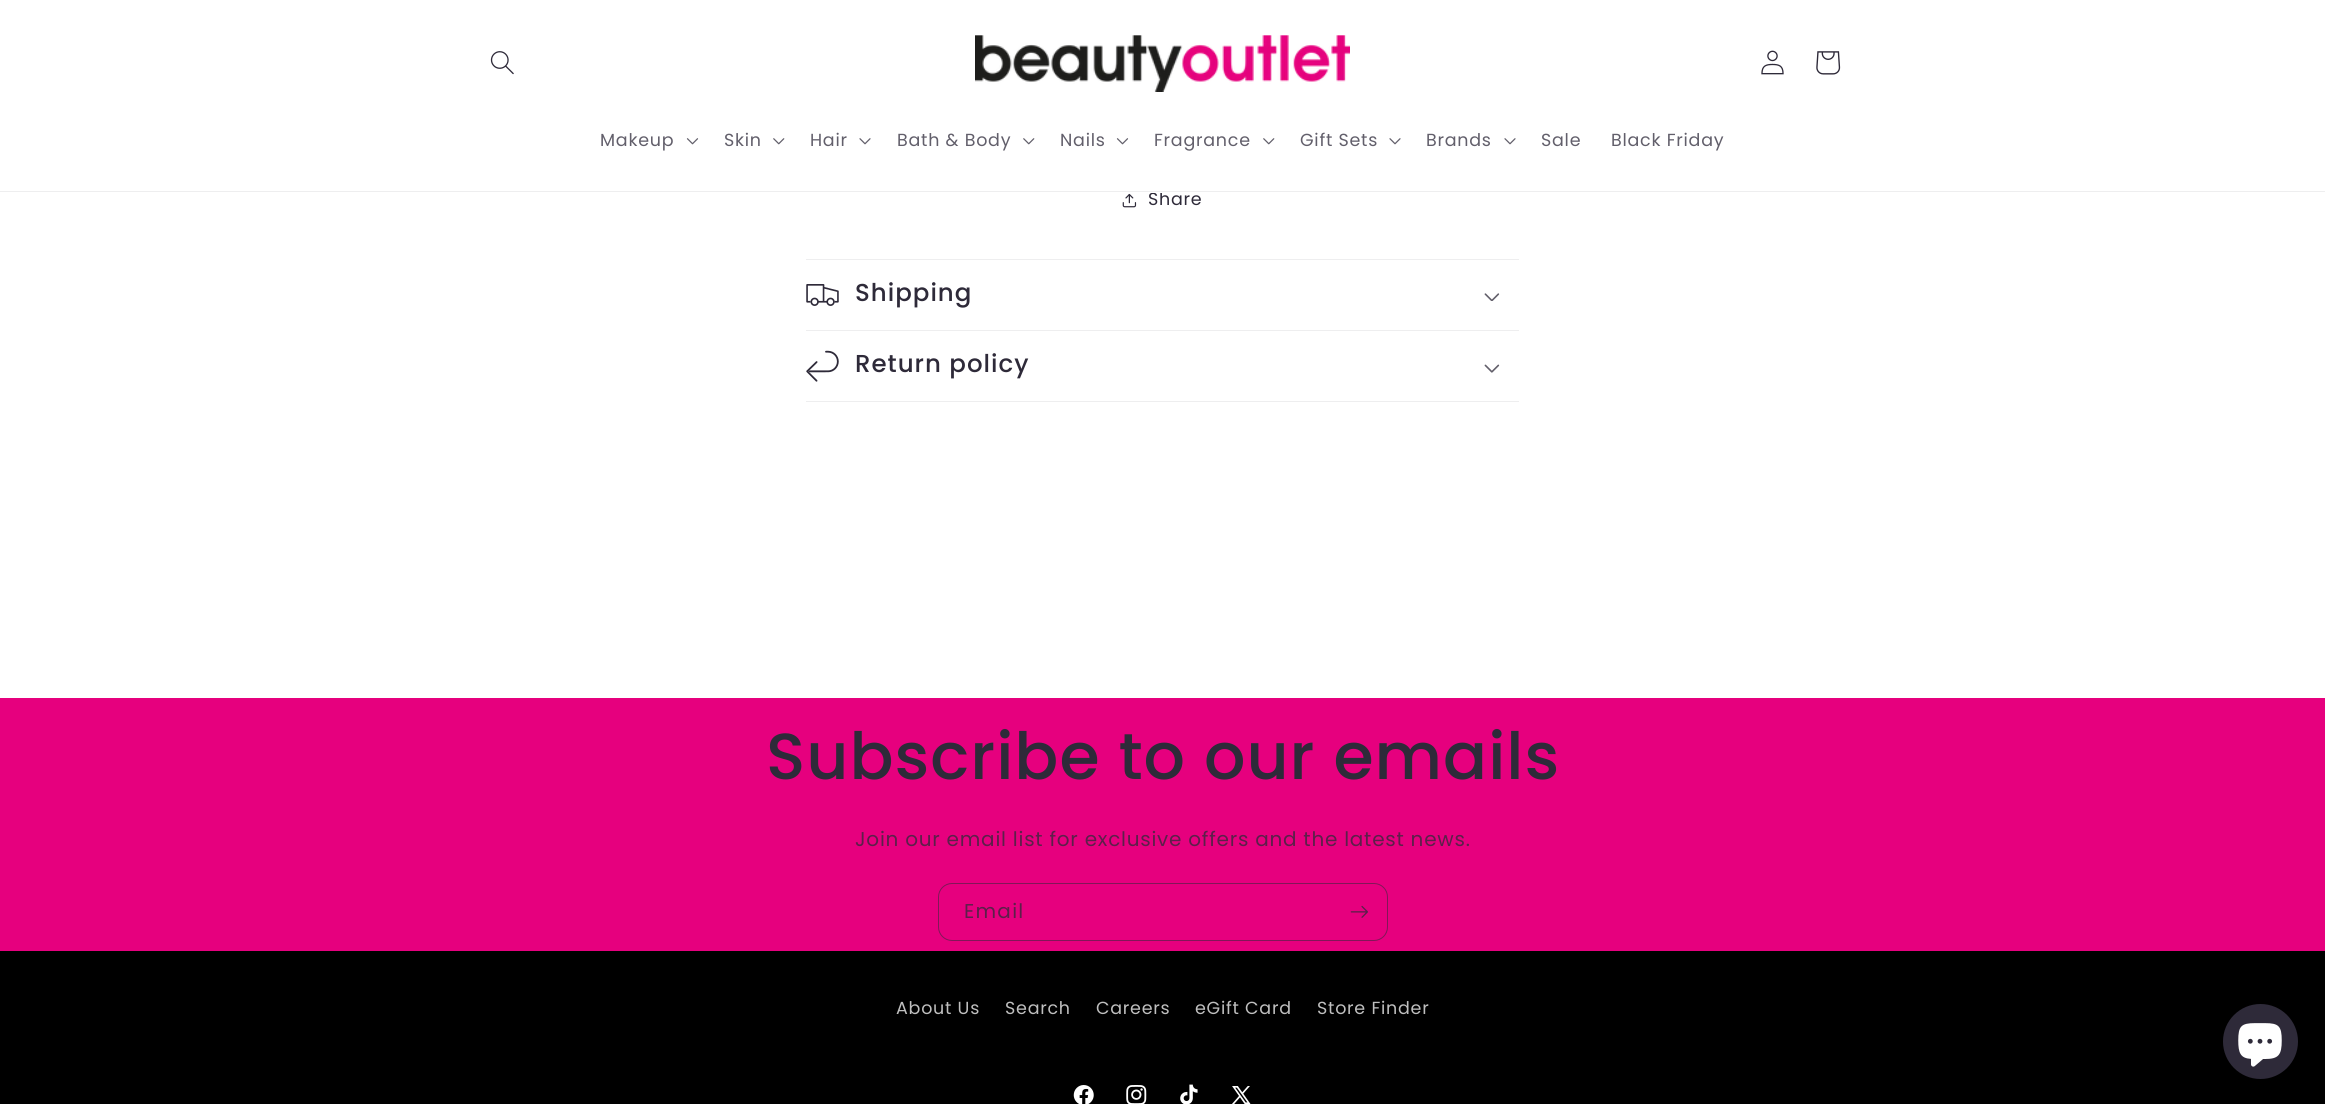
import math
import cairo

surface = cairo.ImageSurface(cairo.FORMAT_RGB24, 2325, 1104)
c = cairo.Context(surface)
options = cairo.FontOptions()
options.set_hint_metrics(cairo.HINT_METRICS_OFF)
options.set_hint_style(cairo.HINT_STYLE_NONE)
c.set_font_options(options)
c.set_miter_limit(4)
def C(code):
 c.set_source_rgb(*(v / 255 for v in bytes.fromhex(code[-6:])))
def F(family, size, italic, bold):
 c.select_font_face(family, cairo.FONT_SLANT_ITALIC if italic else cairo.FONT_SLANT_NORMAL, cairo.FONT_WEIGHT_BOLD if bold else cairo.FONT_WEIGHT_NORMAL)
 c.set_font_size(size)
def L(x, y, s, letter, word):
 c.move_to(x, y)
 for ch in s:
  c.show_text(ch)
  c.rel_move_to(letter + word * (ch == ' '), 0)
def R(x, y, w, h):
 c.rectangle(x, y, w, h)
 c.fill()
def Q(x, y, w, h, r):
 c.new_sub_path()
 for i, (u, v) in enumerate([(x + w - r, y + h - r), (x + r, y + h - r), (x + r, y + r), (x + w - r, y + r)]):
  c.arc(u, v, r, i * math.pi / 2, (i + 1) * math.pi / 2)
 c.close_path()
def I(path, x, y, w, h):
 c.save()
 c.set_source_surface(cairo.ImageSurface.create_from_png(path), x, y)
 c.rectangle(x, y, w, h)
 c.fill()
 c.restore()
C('ffffff')
c.paint()
F('Poppins',17.5,0,0)
C('2e2a39')
L(1148,205,'Share',.75,0)
C('ffffff')
R(1151,192,11,1)
C('eeeeef')
R(0,191,2325,1)
I('1.png',490,51,24,24)
I('2.png',975,35,375,57)
I('3.png',1761,50,23,25)
I('4.png',1816,51,25,24)
C('625f6b')
L(600,146,'Makeup',.75,0)
I('5.png',686,138,13,7)
L(724,146,'Skin',.75,0)
I('6.png',773,138,12,7)
L(810,146,'Hair',.75,0)
I('7.png',859,138,12,7)
L(897,146,'Bath & Body',.75,0)
I('6.png',1023,138,12,7)
L(1060,146,'Nails',.75,0)
I('5.png',1116,138,13,7)
L(1154,146,'Fragrance',.75,0)
I('6.png',1263,138,12,7)
L(1300,146,'Gift Sets',.75,0)
I('7.png',1389,138,12,7)
L(1426,146,'Brands',.75,0)
I('7.png',1504,138,12,7)
L(1541,146,'Sale',.75,0)
L(1611,146,'Black Friday',.75,0)
I('8.png',1122,193,15,15)
C('eeeeef')
R(806,259,713,1)
R(806,330,713,1)
I('9.png',806,284,33,22)
F('Poppins Medium',24.5,0,0)
C('2e2a39')
L(855,301,'Shipping',1,0)
I('10.png',1484,293,16,8)
C('eeeeef')
R(806,401,713,1)
I('11.png',806,350,33,32)
C('2e2a39')
L(855,372,'Return policy',1,0)
I('12.png',1484,364,16,9)
C('e6007e')
R(0,698,2325,253)
F('Poppins Medium',65,0,0)
C('2e2a39')
L(766,779,'Subscribe to our emails',1,0)
F('Poppins',20,0,0)
C('5c204a')
L(855,846,'Join our email list for exclusive offers and the latest news.',.75,0)
Q(938.5,883.5,449,57,13.5)
C('811758')
c.set_line_width(1)
c.stroke()
C('5c204a')
L(964,918,'Email',1.25,0)
I('13.png',1350,905,18,13)
C('000000')
R(0,951,2325,153)
F('Poppins',17.5,0,0)
C('bfbfbf')
L(896,1014,'About Us',.75,0)
L(1005,1014,'Search',.75,0)
L(1096,1014,'Careers',.75,0)
L(1195,1014,'eGift Card',.75,0)
L(1317,1014,'Store Finder',.75,0)
I('14.png',1073,1085,21,19)
I('15.png',1126,1085,21,19)
I('16.png',1180,1084,18,20)
I('17.png',1232,1086,19,18)
C('2e2a39')
c.arc(2260.5,1041.5,37.5,0,2 * math.pi)
c.fill()
I('18.png',2238,1023,44,44)
surface.write_to_png('o.png')
